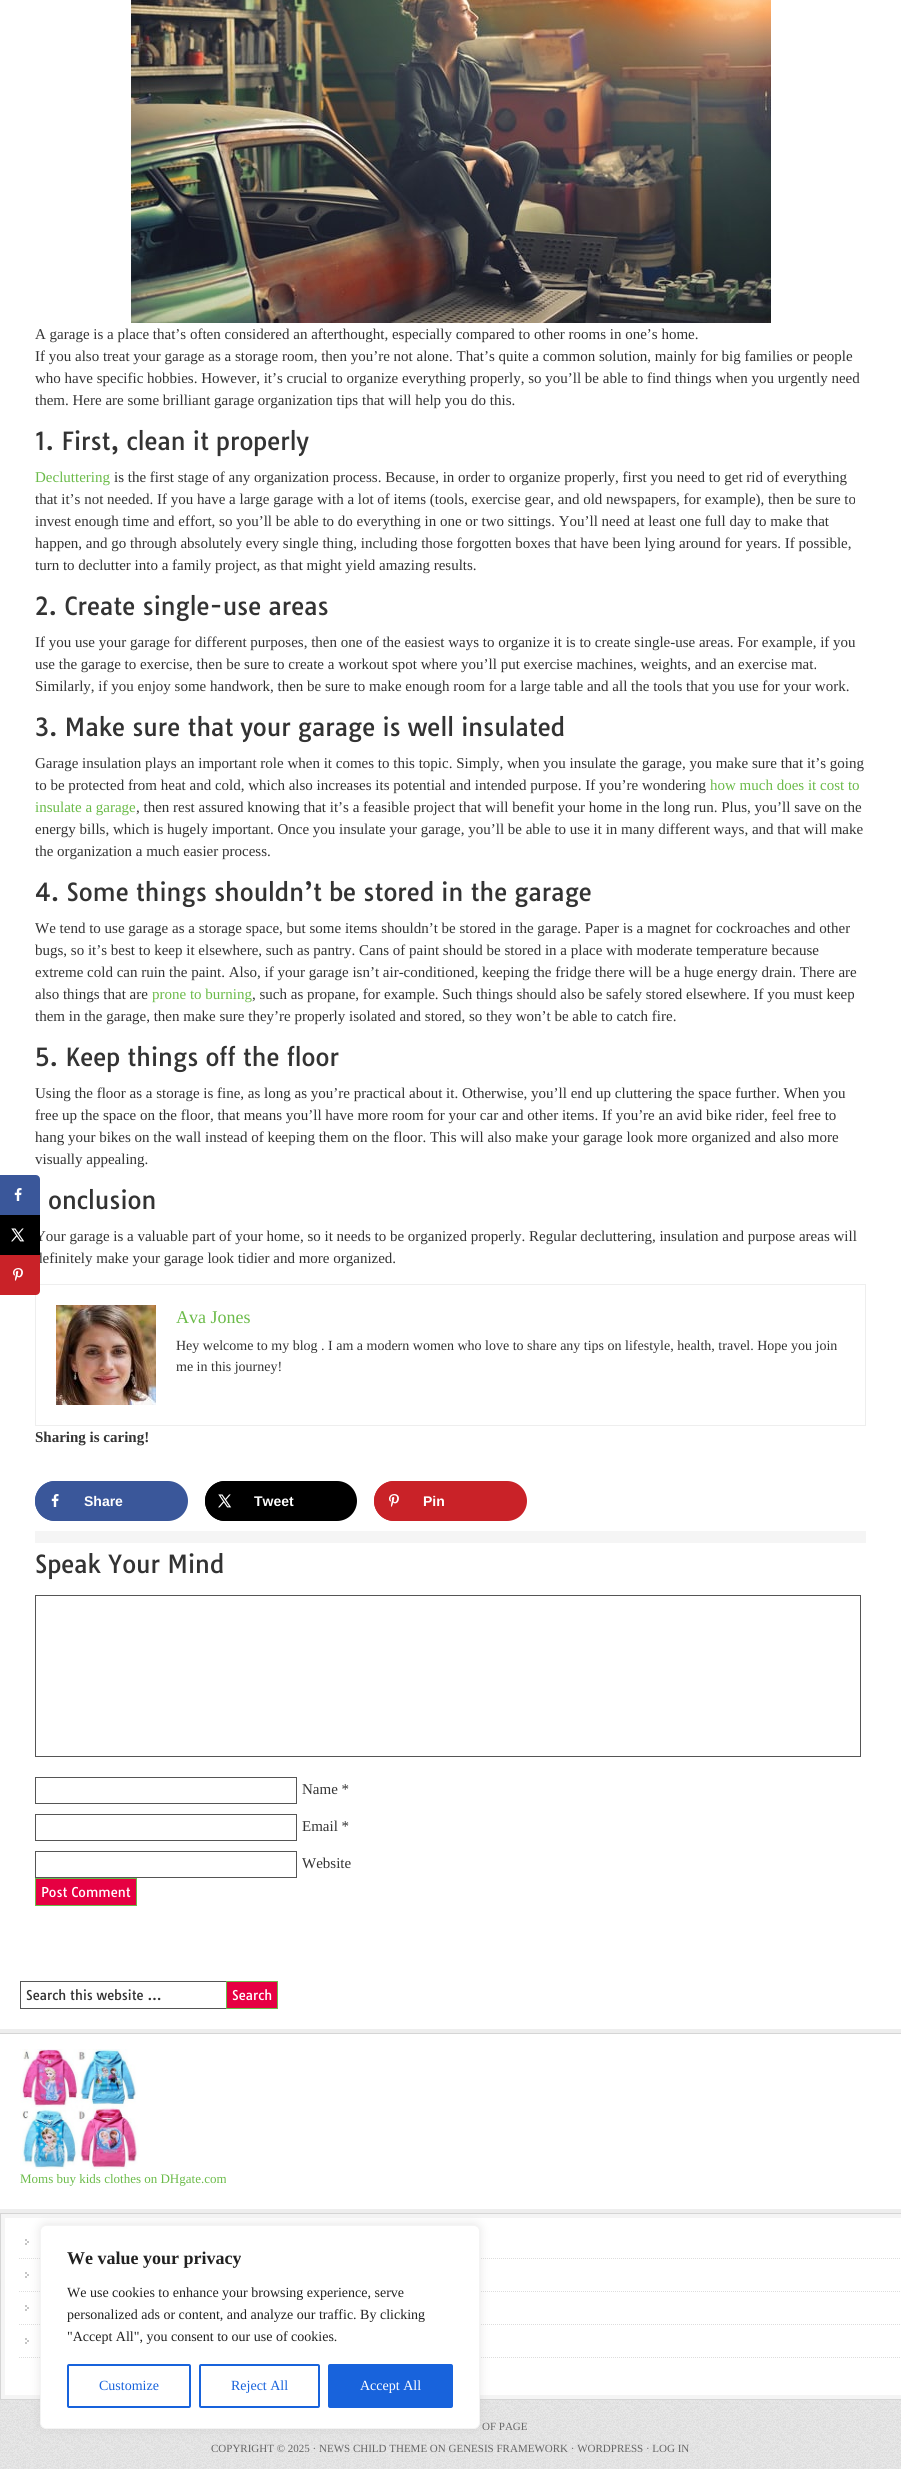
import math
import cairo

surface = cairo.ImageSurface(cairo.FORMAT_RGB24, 901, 2469)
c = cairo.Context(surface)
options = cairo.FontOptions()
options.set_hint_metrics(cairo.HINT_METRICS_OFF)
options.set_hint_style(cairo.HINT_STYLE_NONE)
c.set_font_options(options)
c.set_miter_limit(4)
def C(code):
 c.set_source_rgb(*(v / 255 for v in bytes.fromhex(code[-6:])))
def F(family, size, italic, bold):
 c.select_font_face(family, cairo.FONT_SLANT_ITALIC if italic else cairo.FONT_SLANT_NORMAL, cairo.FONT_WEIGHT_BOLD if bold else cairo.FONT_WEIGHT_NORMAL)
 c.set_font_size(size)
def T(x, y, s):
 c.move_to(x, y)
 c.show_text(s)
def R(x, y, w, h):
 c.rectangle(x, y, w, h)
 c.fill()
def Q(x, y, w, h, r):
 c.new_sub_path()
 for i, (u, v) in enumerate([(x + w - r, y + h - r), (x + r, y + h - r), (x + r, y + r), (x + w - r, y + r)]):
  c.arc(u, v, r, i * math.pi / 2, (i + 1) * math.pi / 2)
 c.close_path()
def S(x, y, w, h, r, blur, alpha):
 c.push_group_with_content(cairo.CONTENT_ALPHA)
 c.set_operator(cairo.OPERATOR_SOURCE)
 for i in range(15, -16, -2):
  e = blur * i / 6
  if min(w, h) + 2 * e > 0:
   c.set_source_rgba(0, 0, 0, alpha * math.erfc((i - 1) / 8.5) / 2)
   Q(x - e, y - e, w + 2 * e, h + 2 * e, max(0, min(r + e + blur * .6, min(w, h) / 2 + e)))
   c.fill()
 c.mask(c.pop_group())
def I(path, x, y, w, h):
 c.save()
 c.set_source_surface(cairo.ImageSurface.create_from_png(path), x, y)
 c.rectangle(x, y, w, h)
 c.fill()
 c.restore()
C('ffffff')
c.paint()
I('1.png',0,2400,901,69)
I('2.png',131,0,640,323)
F('Liberation Serif',15,0,0)
C('333333')
T(35,339,'A garage is a place that’s often considered an afterthought, especially compared to other rooms in one’s home.')
T(35,361,'If you also treat your garage as a storage room, then you’re not alone. That’s quite a common solution, mainly for big families or people')
T(35,383,'who have specific hobbies. However, it’s crucial to organize everything properly, so you’ll be able to find things when you urgently need')
T(35,405,'them. Here are some brilliant garage organization tips that will help you do this.')
F('Tauri',24,0,0)
T(35,450,'1. First, clean it properly')
F('Liberation Serif',15,0,0)
C('6bbb49')
T(35,482,'Decluttering')
C('333333')
T(114,482,'is the first stage of any organization process. Because, in order to organize properly, first you need to get rid of everything')
T(35,504,'that it’s not needed. If you have a large garage with a lot of items (tools, exercise gear, and old newspapers, for example), then be sure to')
T(35,526,'invest enough time and effort, so you’ll be able to do everything in one or two sittings. You’ll need at least one full day to make that')
T(35,548,'happen, and go through absolutely every single thing, including those forgotten boxes that have been lying around for years. If possible,')
T(35,570,'turn to declutter into a family project, as that might yield amazing results.')
F('Tauri',24,0,0)
T(35,615,'2. Create single-use areas')
F('Liberation Serif',15,0,0)
T(35,647,'If you use your garage for different purposes, then one of the easiest ways to organize it is to create single-use areas. For example, if you')
T(35,669,'use the garage to exercise, then be sure to create a workout spot where you’ll put exercise machines, weights, and an exercise mat.')
T(35,691,'Similarly, if you enjoy some handwork, then be sure to make enough room for a large table and all the tools that you use for your work.')
F('Tauri',24,0,0)
T(35,736,'3. Make sure that your garage is well insulated')
F('Liberation Serif',15,0,0)
T(35,768,'Garage insulation plays an important role when it comes to this topic. Simply, when you insulate the garage, you make sure that it’s going')
T(35,790,'to be protected from heat and cold, which also increases its potential and intended purpose. If you’re wondering')
C('6bbb49')
T(710,790,'how much does it cost to')
T(35,812,'insulate a garage')
C('333333')
T(136,812,', then rest assured knowing that it’s a feasible project that will benefit your home in the long run. Plus, you’ll save on the')
T(35,834,'energy bills, which is hugely important. Once you insulate your garage, you’ll be able to use it in many different ways, and that will make')
T(35,856,'the organization a much easier process.')
F('Tauri',24,0,0)
T(35,901,'4. Some things shouldn’t be stored in the garage')
F('Liberation Serif',15,0,0)
T(35,933,'We tend to use garage as a storage space, but some items shouldn’t be stored in the garage. Paper is a magnet for cockroaches and other')
T(35,955,'bugs, so it’s best to keep it elsewhere, such as pantry. Cans of paint should be stored in a place with moderate temperature because')
T(35,977,'extreme cold can ruin the paint. Also, if your garage isn’t air-conditioned, keeping the fridge there will be a huge energy drain. There are')
T(35,999,'also things that are')
C('6bbb49')
T(152,999,'prone to burning')
C('333333')
T(252,999,', such as propane, for example. Such things should also be safely stored elsewhere. If you must keep')
T(35,1021,'them in the garage, then make sure they’re properly isolated and stored, so they won’t be able to catch fire.')
F('Tauri',24,0,0)
T(35,1066,'5. Keep things off the floor')
F('Liberation Serif',15,0,0)
T(35,1098,'Using the floor as a storage is fine, as long as you’re practical about it. Otherwise, you’ll end up cluttering the space further. When you')
T(35,1120,'free up the space on the floor, that means you’ll have more room for your car and other items. If you’re an avid bike rider, feel free to')
T(35,1142,'hang your bikes on the wall instead of keeping them on the floor. This will also make your garage look more organized and also more')
T(35,1164,'visually appealing.')
F('Tauri',24,0,0)
T(48,1209,'onclusion')
F('Liberation Serif',15,0,0)
T(35,1241,'Your garage is a valuable part of your home, so it needs to be organized properly. Regular decluttering, insulation and purpose areas will')
T(35,1263,'definitely make your garage look tidier and more organized.')
c.rectangle(35.5,1284.5,830,141)
C('eeeeee')
c.set_line_width(1)
c.stroke()
I('3.png',56,1305,100,100)
F('Liberation Serif',18,0,0)
C('6bbb49')
T(176,1323,'Ava Jones')
F('Liberation Serif',14,0,0)
C('333333')
T(176,1350,'Hey welcome to my blog . I am a modern women who love to share any tips on lifestyle, health, travel. Hope you join')
T(176,1371,'me in this journey!')
F('Liberation Serif',15,0,1)
T(35,1442,'Sharing is caring!')
C('3a579a')
Q(36,1482,151,38,19)
c.fill_preserve()
c.set_line_width(2)
c.stroke()
c.arc(55,1501,19,0,2 * math.pi)
c.fill_preserve()
c.stroke()
I('4.png',51,1494,8,13)
F('Liberation Sans',14,0,1)
C('ffffff')
T(84,1506,'Share')
C('000000')
Q(206,1482,150,38,19)
c.fill_preserve()
c.stroke()
c.arc(225,1501,19,0,2 * math.pi)
c.fill_preserve()
c.stroke()
I('5.png',218,1494,14,14)
C('ffffff')
T(254,1506,'Tweet')
C('c92228')
Q(375,1482,151,38,19)
c.fill_preserve()
c.stroke()
c.arc(394,1501,19,0,2 * math.pi)
c.fill_preserve()
c.stroke()
I('6.png',389,1494,10,13)
C('ffffff')
T(423,1506,'Pin')
C('f5f5f5')
R(35,1531,831,12)
c.save()
c.rectangle(35,1553,831,353)
c.clip()
F('Tauri',24,0,0)
C('333333')
T(35,1573,'Speak Your Mind')
c.restore()
c.rectangle(35.5,1595.5,825,161)
C('555555')
c.set_line_width(1)
c.stroke()
c.rectangle(35.5,1777.5,261,26)
c.stroke()
F('Liberation Serif',15,0,0)
C('333333')
T(302,1794,'Name *')
c.rectangle(35.5,1814.5,261,26)
C('555555')
c.stroke()
C('333333')
T(302,1831,'Email *')
c.rectangle(35.5,1851.5,261,26)
C('555555')
c.stroke()
C('333333')
T(302,1868,'Website')
C('e60042')
c.rectangle(35.5,1878.5,101,27)
c.fill_preserve()
C('6bbb49')
c.stroke()
F('Tauri',13,0,0)
C('ffffff')
T(41,1897,'Post Comment')
C('d5d5d5')
R(0,2033,901,1)
C('eeeeee')
R(0,2029,901,4)
c.rectangle(20.5,1981.5,211,27)
C('555555')
c.stroke()
C('333333')
T(26,2000,'Search this website …')
C('e60042')
c.rectangle(226.5,1981.5,51,27)
c.fill_preserve()
C('6bbb49')
c.stroke()
C('ffffff')
T(232,2000,'Search')
C('d5d5d5')
R(0,2213,901,1)
C('eeeeee')
R(0,2209,901,4)
I('7.png',20,2049,120,120)
F('Liberation Serif',13,0,0)
C('6bbb49')
T(20,2183,'Moms buy kids clothes on DHgate.com')
C('d5d5d5')
R(0,2399,901,1)
R(0,2214,1,186)
c.rectangle(3,2216,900,181)
C('f5f5f5')
c.set_line_width(4)
c.stroke()
I('8.png',25,2239,4,6)
c.new_path()
c.move_to(19,2258.5)
c.line_to(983,2258.5)
C('dddddd')
c.set_line_width(1)
c.set_dash([1,1])
c.stroke()
I('8.png',25,2272,4,6)
c.new_path()
c.move_to(19,2291.5)
c.line_to(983,2291.5)
c.stroke()
I('8.png',25,2305,4,6)
c.new_path()
c.move_to(19,2324.5)
c.line_to(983,2324.5)
c.stroke()
I('8.png',25,2338,4,6)
c.new_path()
c.move_to(19,2357.5)
c.line_to(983,2357.5)
c.stroke()
F('Liberation Serif',11,0,0)
C('666666')
T(482,2430,'OF PAGE')
T(211,2452,'COPYRIGHT © 2025 · NEWS CHILD THEME ON GENESIS FRAMEWORK · WORDPRESS · LOG IN')
C('3a579a')
c.new_path()
c.move_to(1,1176)
c.line_to(36,1176)
c.curve_to(37.5,1176,39,1177.5,39,1179)
c.line_to(39,1214)
c.line_to(1,1214)
c.close_path()
c.fill_preserve()
c.set_line_width(2)
c.set_dash([])
c.stroke()
I('4.png',14,1188,8,13)
C('000000')
R(0,1215,40,40)
I('5.png',11,1228,14,14)
C('c92228')
c.new_path()
c.move_to(1,1256)
c.line_to(39,1256)
c.line_to(39,1291)
c.curve_to(39,1292.5,37.5,1294,36,1294)
c.line_to(1,1294)
c.close_path()
c.fill_preserve()
c.stroke()
I('6.png',13,1268,10,13)
C('acabab')
S(40,2224,440,204,6,5,.3)
C('ffffff')
Q(40.5,2225.5,439,203,5.5)
c.fill_preserve()
C('f4f4f4')
c.set_line_width(1)
c.stroke()
F('Liberation Serif',18,0,1)
C('212121')
T(67,2264,'We value your privacy')
F('Liberation Serif',14,0,0)
T(67,2297,'We use cookies to enhance your browsing experience, serve')
T(67,2319,'personalized ads or content, and analyze our traffic. By clicking')
T(67,2341,'"Accept All", you consent to our use of cookies.')
Q(68,2365,122,42,1)
C('1863dc')
c.set_line_width(2)
c.stroke()
T(99,2390,'Customize')
Q(200,2365,119,42,1)
c.stroke()
T(231,2390,'Reject All')
Q(329,2365,123,42,1)
c.fill_preserve()
c.stroke()
C('ffffff')
T(360,2390,'Accept All')
surface.write_to_png('o.png')
